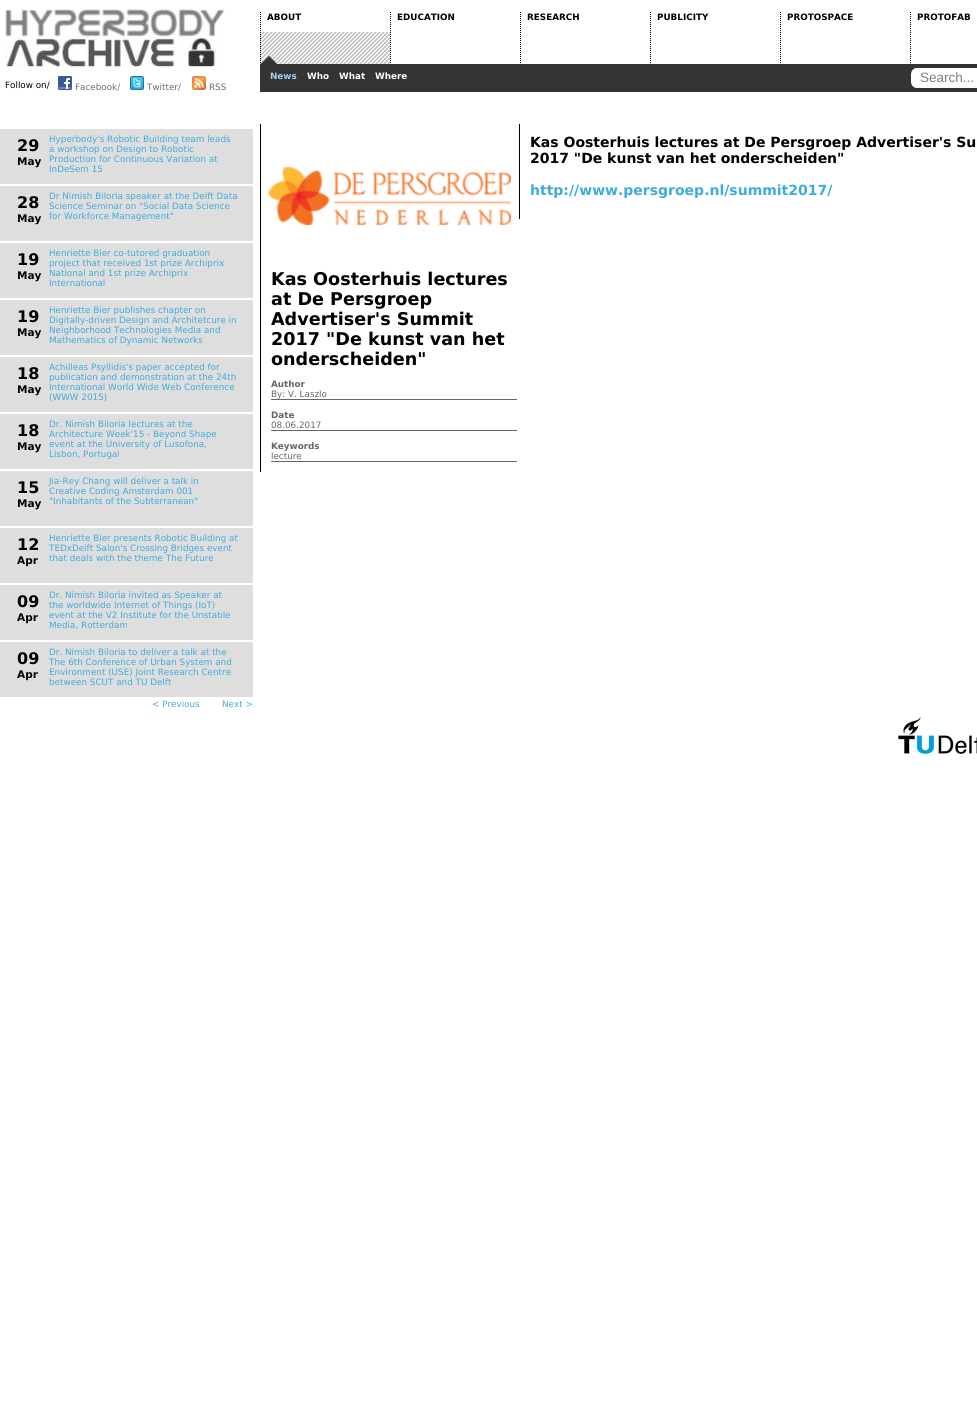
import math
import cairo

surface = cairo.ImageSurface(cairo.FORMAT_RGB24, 977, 1404)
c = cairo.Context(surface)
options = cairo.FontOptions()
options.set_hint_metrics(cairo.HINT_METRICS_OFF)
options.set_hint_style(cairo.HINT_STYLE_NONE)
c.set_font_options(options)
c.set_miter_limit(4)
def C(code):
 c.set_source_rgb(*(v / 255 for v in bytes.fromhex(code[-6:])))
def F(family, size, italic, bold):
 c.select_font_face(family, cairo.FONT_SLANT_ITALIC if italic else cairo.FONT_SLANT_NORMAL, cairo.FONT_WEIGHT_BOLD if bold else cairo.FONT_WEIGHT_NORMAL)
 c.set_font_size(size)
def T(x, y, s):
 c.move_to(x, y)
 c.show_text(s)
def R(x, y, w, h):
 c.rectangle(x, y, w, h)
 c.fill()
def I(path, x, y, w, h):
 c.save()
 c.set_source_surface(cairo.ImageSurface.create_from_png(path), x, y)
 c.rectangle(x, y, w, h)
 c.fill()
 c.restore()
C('ffffff')
c.paint()
I('1.png',260,32,130,32)
c.new_path()
c.move_to(260.5,12)
c.line_to(260.5,64)
C('000000')
c.set_line_width(1)
c.set_dash([1,1])
c.stroke()
F('DejaVu Sans',8.8,0,1)
T(267,20,'ABOUT')
c.new_path()
c.move_to(390.5,12)
c.line_to(390.5,64)
c.stroke()
T(397,20,'EDUCATION')
c.new_path()
c.move_to(520.5,12)
c.line_to(520.5,64)
c.stroke()
T(527,20,'RESEARCH')
c.new_path()
c.move_to(650.5,12)
c.line_to(650.5,64)
c.stroke()
T(657,20,'PUBLICITY')
c.new_path()
c.move_to(780.5,12)
c.line_to(780.5,64)
c.stroke()
T(787,20,'PROTOSPACE')
c.new_path()
c.move_to(910.5,12)
c.line_to(910.5,64)
c.stroke()
T(917,20,'PROTOFAB')
I('2.png',5,9,220,58)
F('DejaVu Sans',8.8,0,0)
T(5,88,'Follow on/')
I('3.png',58,76,14,14)
C('6b6b6b')
T(75,90,'Facebook/')
I('4.png',130,76,14,14)
T(147,90,'Twitter/')
I('5.png',192,76,14,14)
T(209,90,'RSS')
C('343434')
R(260,64,717,28)
F('DejaVu Sans',8.8,0,1)
C('9dd4ed')
T(270,79,'News')
C('ffffff')
T(307,79,'Who')
T(339,79,'What')
T(375,79,'Where')
R(916,68,61,20)
I('6.png',910,68,6,20)
F('Liberation Sans',13.5,0,0)
C('808080')
T(920,82,'Search...')
C('dedede')
R(0,129,253,55)
F('DejaVu Sans',16,0,1)
C('000000')
T(17,151,'29')
F('DejaVu Sans',10.5,0,1)
T(17,165,'May')
F('DejaVu Sans',8.8,0,0)
C('3fabdd')
T(49,142,'Hyperbody\'s Robotic Building team leads')
T(49,152,'a workshop on Design to Robotic')
T(49,162,'Production for Continuous Variation at')
T(49,172,'InDeSem 15')
C('dedede')
R(0,186,253,55)
F('DejaVu Sans',16,0,1)
C('000000')
T(17,208,'28')
F('DejaVu Sans',10.5,0,1)
T(17,222,'May')
F('DejaVu Sans',8.8,0,0)
C('3fabdd')
T(49,199,'Dr Nimish Biloria speaker at the Delft Data')
T(49,209,'Science Seminar on "Social Data Science')
T(49,219,'for Workforce Management"')
C('dedede')
R(0,243,253,55)
F('DejaVu Sans',16,0,1)
C('000000')
T(17,265,'19')
F('DejaVu Sans',10.5,0,1)
T(17,279,'May')
F('DejaVu Sans',8.8,0,0)
C('3fabdd')
T(49,256,'Henriette Bier co-tutored graduation')
T(49,266,'project that received 1st prize Archiprix')
T(49,276,'National and 1st prize Archiprix')
T(49,286,'International')
C('dedede')
R(0,300,253,55)
F('DejaVu Sans',16,0,1)
C('000000')
T(17,322,'19')
F('DejaVu Sans',10.5,0,1)
T(17,336,'May')
F('DejaVu Sans',8.8,0,0)
C('3fabdd')
T(49,313,'Henriette Bier publishes chapter on')
T(49,323,'Digitally-driven Design and Architetcure in')
T(49,333,'Neighborhood Technologies Media and')
T(49,343,'Mathematics of Dynamic Networks')
C('dedede')
R(0,357,253,55)
F('DejaVu Sans',16,0,1)
C('000000')
T(17,379,'18')
F('DejaVu Sans',10.5,0,1)
T(17,393,'May')
F('DejaVu Sans',8.8,0,0)
C('3fabdd')
T(49,370,'Achilleas Psyllidis\'s paper accepted for')
T(49,380,'publication and demonstration at the 24th')
T(49,390,'International World Wide Web Conference')
T(49,400,'(WWW 2015)')
C('dedede')
R(0,414,253,55)
F('DejaVu Sans',16,0,1)
C('000000')
T(17,436,'18')
F('DejaVu Sans',10.5,0,1)
T(17,450,'May')
F('DejaVu Sans',8.8,0,0)
C('3fabdd')
T(49,427,'Dr. Nimish Biloria lectures at the')
T(49,437,'Architecture Week\'15 - Beyond Shape')
T(49,447,'event at the University of Lusofona,')
T(49,457,'Lisbon, Portugal')
C('dedede')
R(0,471,253,55)
F('DejaVu Sans',16,0,1)
C('000000')
T(17,493,'15')
F('DejaVu Sans',10.5,0,1)
T(17,507,'May')
F('DejaVu Sans',8.8,0,0)
C('3fabdd')
T(49,484,'Jia-Rey Chang will deliver a talk in')
T(49,494,'Creative Coding Amsterdam 001')
T(49,504,'"Inhabitants of the Subterranean"')
C('dedede')
R(0,528,253,55)
F('DejaVu Sans',16,0,1)
C('000000')
T(17,550,'12')
F('DejaVu Sans',10.5,0,1)
T(17,564,'Apr')
F('DejaVu Sans',8.8,0,0)
C('3fabdd')
T(49,541,'Henriette Bier presents Robotic Building at')
T(49,551,'TEDxDelft Salon\'s Crossing Bridges event')
T(49,561,'that deals with the theme The Future')
C('dedede')
R(0,585,253,55)
F('DejaVu Sans',16,0,1)
C('000000')
T(17,607,'09')
F('DejaVu Sans',10.5,0,1)
T(17,621,'Apr')
F('DejaVu Sans',8.8,0,0)
C('3fabdd')
T(49,598,'Dr. Nimish Biloria invited as Speaker at')
T(49,608,'the worldwide Internet of Things (IoT)')
T(49,618,'event at the V2 Institute for the Unstable')
T(49,628,'Media, Rotterdam')
C('dedede')
R(0,642,253,55)
F('DejaVu Sans',16,0,1)
C('000000')
T(17,664,'09')
F('DejaVu Sans',10.5,0,1)
T(17,678,'Apr')
F('DejaVu Sans',8.8,0,0)
C('3fabdd')
T(49,655,'Dr. Nimish Biloria to deliver a talk at the')
T(49,665,'The 6th Conference of Urban System and')
T(49,675,'Environment (USE) Joint Research Centre')
T(49,685,'between SCUT and TU Delft')
T(152,707,'< Previous')
T(222,707,'Next >')
C('000000')
R(519,124,1,95)
F('DejaVu Sans',14,0,1)
T(530,147,'Kas Oosterhuis lectures at De Persgroep Advertiser\'s Su')
T(530,163,'2017 "De kunst van het onderscheiden"')
C('3fabdd')
T(530,195,'http://www.persgroep.nl/summit2017/')
C('000000')
R(260,124,1,348)
I('7.png',268,167,243,59)
F('DejaVu Sans',17.6,0,1)
T(271,285,'Kas Oosterhuis lectures')
T(271,305,'at De Persgroep')
T(271,325,'Advertiser\'s Summit')
T(271,345,'2017 "De kunst van het')
T(271,365,'onderscheiden"')
F('DejaVu Sans',8.8,0,1)
C('676566')
T(271,387,'Author')
R(271,399,246,1)
F('DejaVu Sans',8.8,0,0)
T(271,397,'By: V. Laszlo')
F('DejaVu Sans',8.8,0,1)
T(271,418,'Date')
R(271,430,246,1)
F('DejaVu Sans',8.8,0,0)
T(271,428,'08.06.2017')
F('DejaVu Sans',8.8,0,1)
T(271,449,'Keywords')
R(271,461,246,1)
F('DejaVu Sans',8.8,0,0)
T(271,459,'lecture')
I('8.png',898,717,79,37)
surface.write_to_png('o.png')
